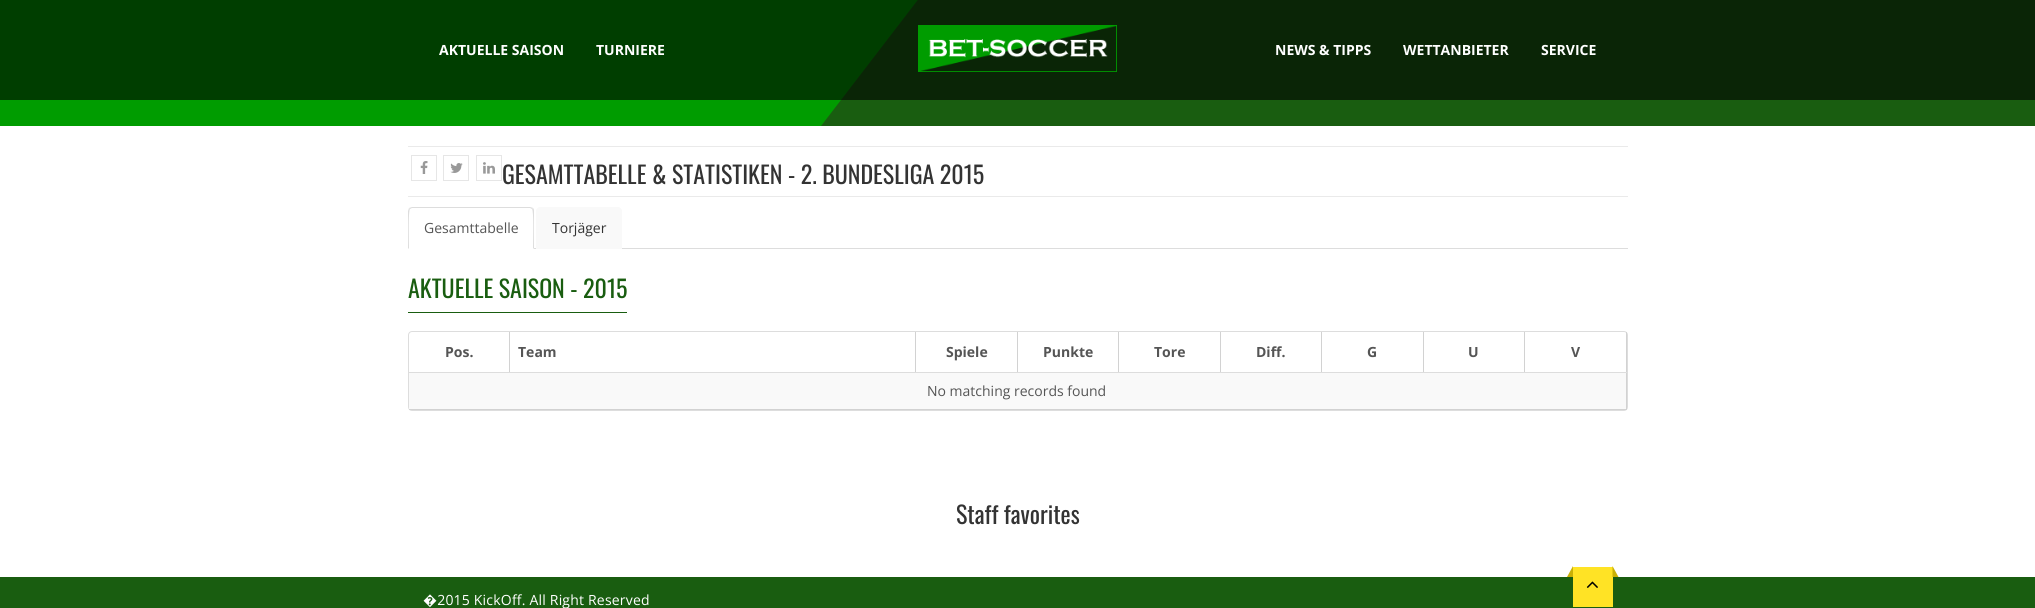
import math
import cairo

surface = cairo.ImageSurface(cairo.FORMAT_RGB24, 2035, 608)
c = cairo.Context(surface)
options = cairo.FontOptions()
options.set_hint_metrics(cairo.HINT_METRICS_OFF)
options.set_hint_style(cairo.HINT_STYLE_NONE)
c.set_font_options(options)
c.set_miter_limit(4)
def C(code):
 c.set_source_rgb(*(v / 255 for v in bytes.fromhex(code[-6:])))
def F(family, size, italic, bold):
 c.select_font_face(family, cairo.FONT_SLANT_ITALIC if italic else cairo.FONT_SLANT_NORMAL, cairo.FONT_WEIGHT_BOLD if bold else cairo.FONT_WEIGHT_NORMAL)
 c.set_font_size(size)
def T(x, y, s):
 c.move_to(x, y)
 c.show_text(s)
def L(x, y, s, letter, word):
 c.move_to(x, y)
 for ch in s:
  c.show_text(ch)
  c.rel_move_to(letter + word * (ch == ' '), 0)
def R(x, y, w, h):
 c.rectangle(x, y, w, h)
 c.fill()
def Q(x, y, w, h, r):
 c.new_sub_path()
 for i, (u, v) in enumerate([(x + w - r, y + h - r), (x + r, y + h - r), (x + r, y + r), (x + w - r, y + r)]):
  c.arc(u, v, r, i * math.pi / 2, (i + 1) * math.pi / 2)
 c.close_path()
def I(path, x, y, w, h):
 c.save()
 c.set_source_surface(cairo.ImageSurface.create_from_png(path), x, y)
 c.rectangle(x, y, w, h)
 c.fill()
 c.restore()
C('ffffff')
c.paint()
C('009c00')
R(0,0,918,126)
C('195d10')
c.new_path()
c.move_to(973,126)
c.line_to(821,126)
c.line_to(973,-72)
c.close_path()
c.fill()
R(973,0,1062,126)
c.set_source_rgba(0,0,0,0.6)
R(0,0,2035,100)
F('Open Sans',14,0,1)
C('ffffff')
T(439,55,'AKTUELLE SAISON')
T(596,55,'TURNIERE')
I('1.png',918,25,199,47)
T(1275,55,'NEWS & TIPPS')
T(1403,55,'WETTANBIETER')
T(1541,55,'SERVICE')
C('eaeaea')
R(408,146,1220,1)
R(408,196,1220,1)
c.rectangle(411.5,155.5,25,25)
C('e6e6e6')
c.set_line_width(1)
c.stroke()
I('2.png',420,161,8,13)
c.rectangle(443.5,155.5,25,25)
c.stroke()
I('3.png',450,163,13,10)
c.rectangle(476.5,155.5,25,25)
c.stroke()
I('4.png',483,162,12,12)
F('Oswald',24,0,0)
C('333333')
T(502,184,'GESAMTTABELLE & STATISTIKEN - 2. BUNDESLIGA 2015')
C('dddddd')
R(534,248,1094,1)
c.new_path()
c.move_to(412,207)
c.line_to(409,208)
c.line_to(410,209)
c.line_to(412,208)
c.line_to(530,208)
c.line_to(532,209)
c.line_to(533,208)
c.line_to(530,207)
c.close_path()
c.fill()
c.new_path()
c.move_to(534,249)
c.line_to(534,211)
c.curve_to(534,210,534,209,533,208)
c.line_to(532,209)
c.curve_to(534,211,533,243,533,248)
c.close_path()
c.fill()
c.new_path()
c.move_to(408,249)
c.line_to(409,248)
c.curve_to(409,243,408,211,410,209)
c.line_to(409,208)
c.line_to(408,211)
c.close_path()
c.fill()
F('Open Sans',14,0,0)
C('555555')
T(424,233,'Gesamttabelle')
C('f9f9f9')
c.new_path()
c.move_to(540,207)
c.line_to(618,207)
c.curve_to(620,207,622,209,622,211)
c.line_to(622,249)
c.line_to(536,249)
c.line_to(536,211)
c.curve_to(536,209,538,207,540,207)
c.close_path()
c.fill()
C('333333')
T(552,233,'Torjäger')
C('195d10')
R(408,312,219,1)
F('Oswald',24,0,0)
T(408,298,'AKTUELLE SAISON - 2015')
Q(408.5,331.5,1219,79,3.5)
C('dddddd')
c.stroke()
C('d2d2d2')
R(1626,332,1,78)
C('dddddd')
R(1524,372,103,1)
C('d2d2d2')
R(1524,332,1,41)
C('dddddd')
R(1423,372,102,1)
C('d2d2d2')
R(1423,332,1,41)
C('dddddd')
R(1321,372,103,1)
C('d2d2d2')
R(1321,332,1,41)
C('dddddd')
R(1220,372,102,1)
C('d2d2d2')
R(1220,332,1,41)
C('dddddd')
R(1118,372,103,1)
C('d2d2d2')
R(1118,332,1,41)
C('dddddd')
R(1017,372,102,1)
C('d2d2d2')
R(1017,332,1,41)
C('dddddd')
R(915,372,103,1)
C('d2d2d2')
R(915,332,1,41)
C('dddddd')
R(509,372,407,1)
C('d2d2d2')
R(509,332,1,41)
C('dddddd')
R(409,372,101,1)
F('Open Sans',14,0,1)
C('555555')
T(445,357,'Pos.')
T(518,357,'Team')
T(946,357,'Spiele')
T(1043,357,'Punkte')
T(1154,357,'Tore')
T(1256,357,'Diff.')
T(1367,357,'G')
T(1468,357,'U')
T(1571,357,'V')
C('f9f9f9')
R(409,373,1217,36)
C('d2d2d2')
R(409,409,1218,1)
F('Open Sans',14,0,0)
C('555555')
T(927,396,'No matching records found')
F('Oswald',24,0,0)
C('333333')
T(956,524,'Staff favorites')
C('195d10')
R(0,577,2035,31)
F('Open Sans',14,0,0)
C('ffffff')
L(423,605,'�2015 KickOff. All Right Reserved',.2,0)
C('ffe325')
R(1573,567,40,40)
C('c9b005')
c.new_path()
c.move_to(1573,577)
c.line_to(1567,577)
c.line_to(1573,566)
c.close_path()
c.fill()
c.new_path()
c.move_to(1612.5,577)
c.line_to(1618.5,577)
c.line_to(1612.5,566)
c.close_path()
c.fill()
I('5.png',1586,581,12,7)
surface.write_to_png('o.png')
